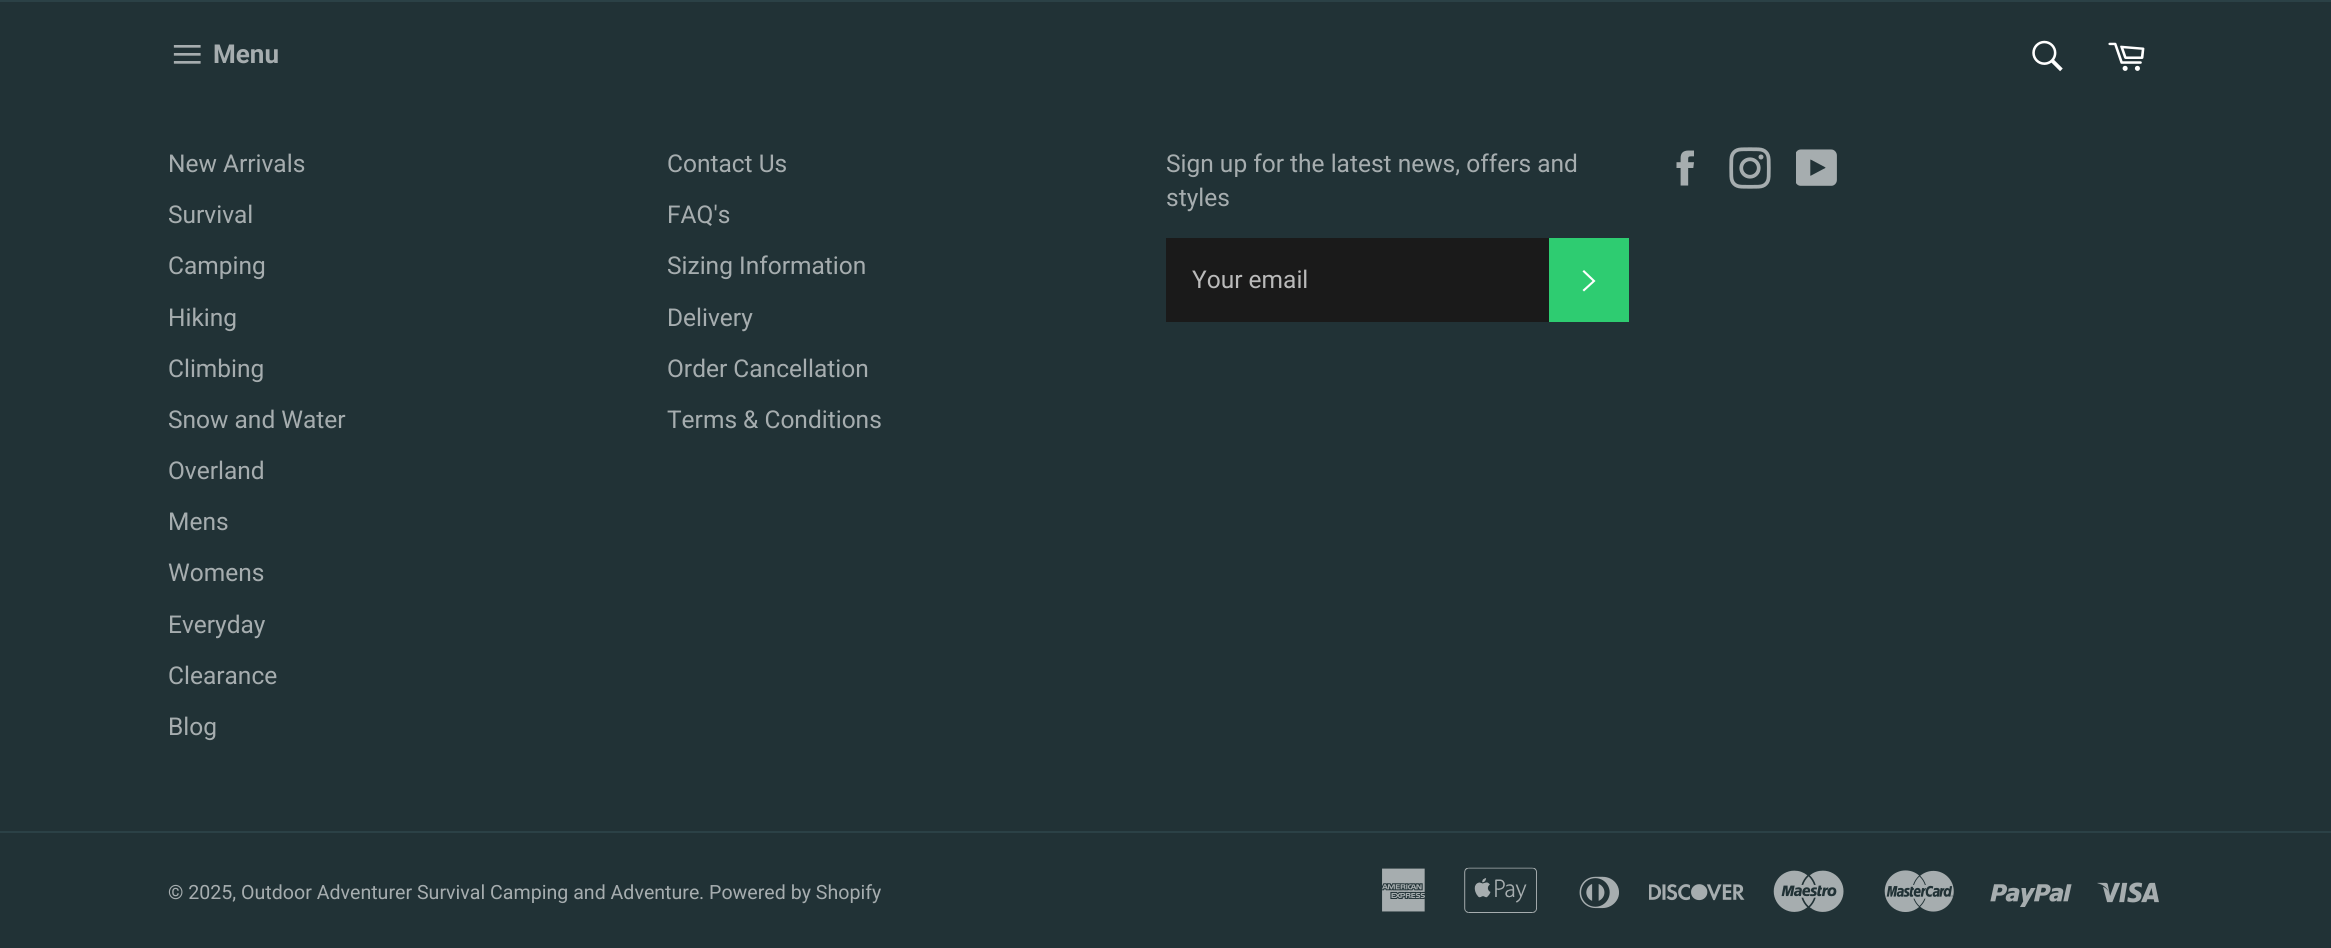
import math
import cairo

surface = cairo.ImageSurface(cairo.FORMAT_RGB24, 2331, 948)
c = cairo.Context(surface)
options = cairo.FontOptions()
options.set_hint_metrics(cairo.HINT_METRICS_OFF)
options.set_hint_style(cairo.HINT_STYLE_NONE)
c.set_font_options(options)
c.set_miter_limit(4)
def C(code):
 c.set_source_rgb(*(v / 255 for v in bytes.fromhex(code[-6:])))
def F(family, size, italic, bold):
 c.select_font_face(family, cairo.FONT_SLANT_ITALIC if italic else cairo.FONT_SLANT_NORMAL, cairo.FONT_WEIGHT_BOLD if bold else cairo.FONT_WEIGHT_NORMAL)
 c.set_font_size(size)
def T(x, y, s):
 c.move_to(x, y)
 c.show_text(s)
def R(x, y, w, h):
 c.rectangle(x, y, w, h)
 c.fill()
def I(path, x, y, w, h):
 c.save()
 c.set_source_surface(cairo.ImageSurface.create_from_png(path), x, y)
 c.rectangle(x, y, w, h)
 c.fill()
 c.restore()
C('213236')
c.paint()
C('2b4146')
R(0,0,2331,2)
I('1.png',173,45,28,19)
F('Roboto',26,0,1)
C('a6adaf')
T(213,63,'Menu')
I('2.png',2032,40,31,32)
I('3.png',2108,42,37,29)
F('Roboto',24.5,0,0)
T(168,172,'New Arrivals')
T(168,223,'Survival')
T(168,274,'Camping')
T(168,326,'Hiking')
T(168,377,'Climbing')
T(168,428,'Snow and Water')
T(168,479,'Overland')
T(168,530,'Mens')
T(168,581,'Womens')
T(168,633,'Everyday')
T(168,684,'Clearance')
T(168,735,'Blog')
T(667,172,'Contact Us')
T(667,223,'FAQ\'s')
T(667,274,'Sizing Information')
T(667,326,'Delivery')
T(667,377,'Order Cancellation')
T(667,428,'Terms & Conditions')
T(1166,172,'Sign up for the latest news, offers and')
T(1166,206,'styles')
C('1a1a1a')
R(1166,238,383,84)
C('bababa')
T(1192,288,'Your email')
C('2ecc71')
R(1549,238,80,84)
C('ffffff')
c.new_path()
c.move_to(1582.5,271.5)
c.line_to(1584,270)
c.line_to(1595.5,281)
c.line_to(1584,291.5)
c.line_to(1582.5,290)
c.line_to(1592.5,281)
c.close_path()
c.fill()
I('4.png',1676,150,18,36)
I('5.png',1729,147,42,42)
I('6.png',1796,149,41,37)
C('2b4146')
R(0,831,2331,2)
F('Roboto',19.6,0,0)
C('a6adaf')
T(168,899,'© 2025, Outdoor Adventurer Survival Camping and Adventure')
T(699,899,'. Powered by Shopify')
I('7.png',1382,868,43,44)
I('8.png',1464,867,73,46)
I('9.png',1579,876,40,33)
I('10.png',1649,884,96,17)
I('11.png',1773,870,71,42)
I('12.png',1884,870,70,42)
I('13.png',1990,884,82,23)
I('14.png',2097,882,62,21)
surface.write_to_png('o.png')
